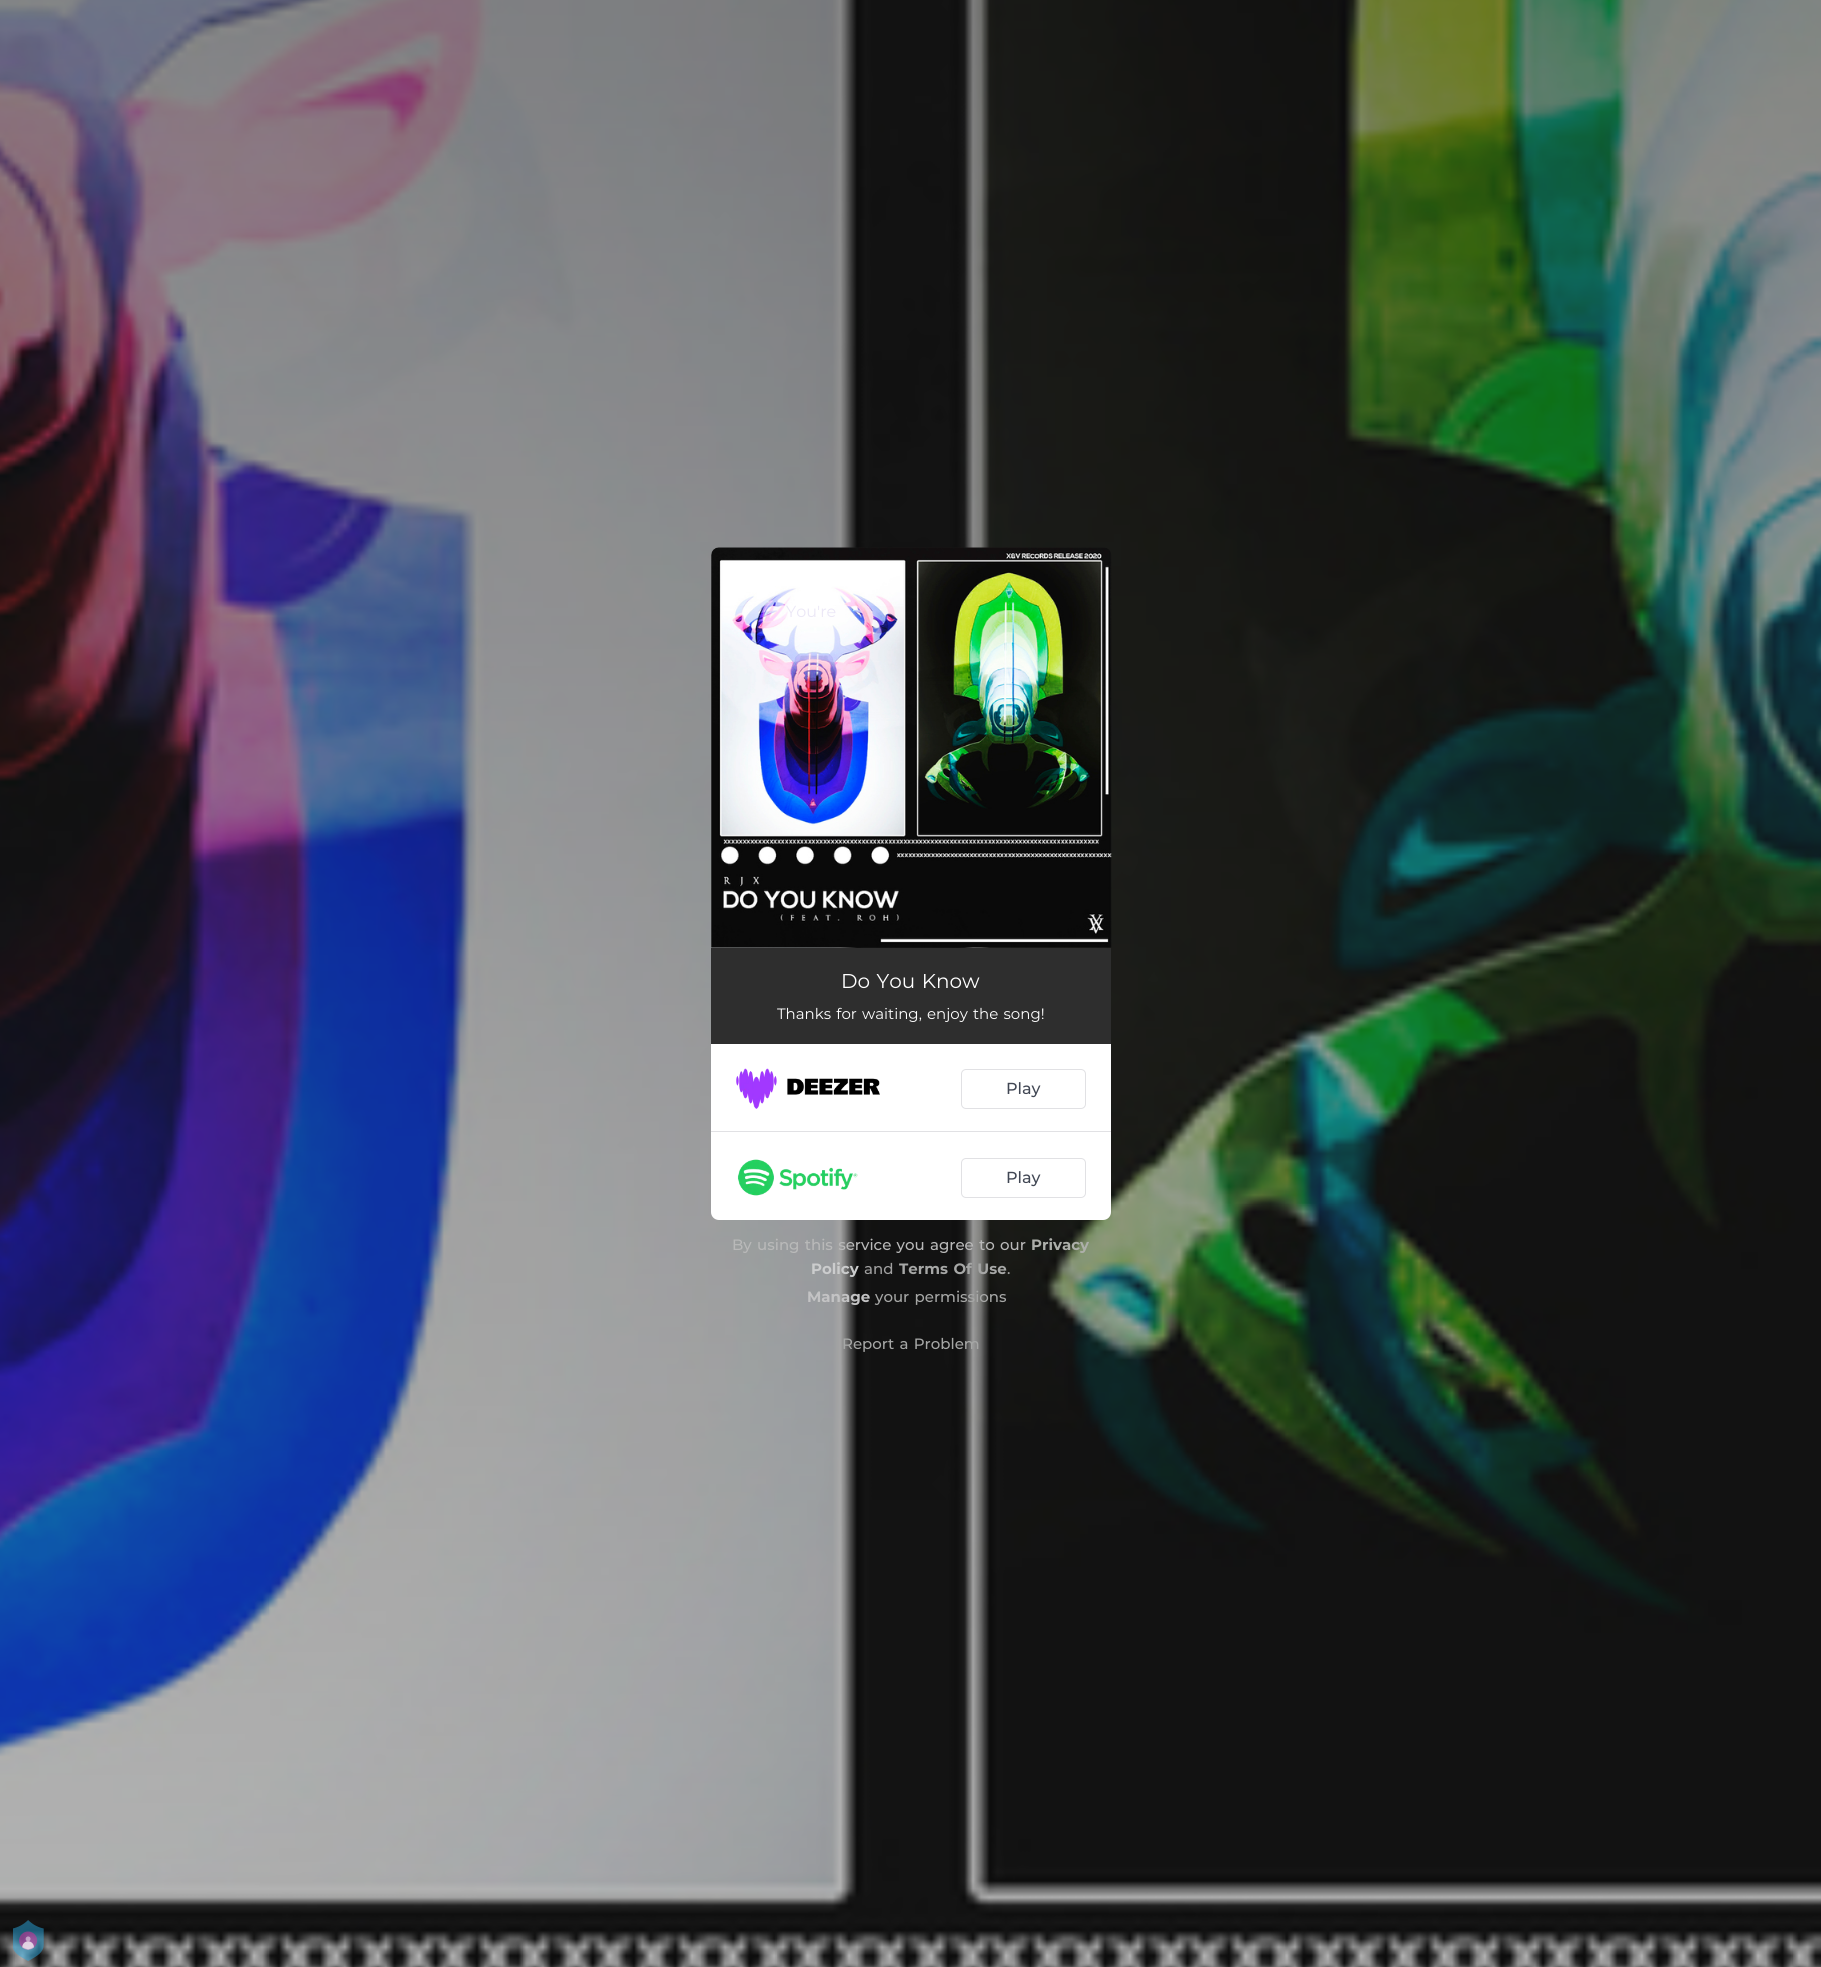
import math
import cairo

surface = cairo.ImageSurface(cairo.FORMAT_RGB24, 1821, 1967)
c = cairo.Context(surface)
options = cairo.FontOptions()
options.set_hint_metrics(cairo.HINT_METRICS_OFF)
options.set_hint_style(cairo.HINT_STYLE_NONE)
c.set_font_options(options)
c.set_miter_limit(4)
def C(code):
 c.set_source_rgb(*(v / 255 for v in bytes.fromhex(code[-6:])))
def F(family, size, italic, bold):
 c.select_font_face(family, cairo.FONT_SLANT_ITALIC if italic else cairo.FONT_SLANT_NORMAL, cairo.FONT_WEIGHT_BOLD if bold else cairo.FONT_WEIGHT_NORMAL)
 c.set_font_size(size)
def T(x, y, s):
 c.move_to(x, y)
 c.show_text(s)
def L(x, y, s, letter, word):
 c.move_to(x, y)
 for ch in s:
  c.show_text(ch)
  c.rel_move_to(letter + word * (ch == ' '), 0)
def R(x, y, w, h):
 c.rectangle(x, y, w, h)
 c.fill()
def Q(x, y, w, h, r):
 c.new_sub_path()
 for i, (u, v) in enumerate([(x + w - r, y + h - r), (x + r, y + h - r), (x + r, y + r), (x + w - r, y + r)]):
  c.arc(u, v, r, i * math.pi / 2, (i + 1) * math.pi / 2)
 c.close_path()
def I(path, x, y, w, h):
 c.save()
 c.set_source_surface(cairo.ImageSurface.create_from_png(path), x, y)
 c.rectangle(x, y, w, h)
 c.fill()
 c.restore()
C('ffffff')
c.paint()
I('1.png',0,0,1821,1967)
I('2.png',711,547,401,401)
F('Montserrat',16,0,0)
C('ebe7f6')
L(786,617,'You\'re',0,1.25)
C('2e2e2e')
R(711,948,400,96)
F('Montserrat',20,0,0)
C('ffffff')
L(841,988,'Do You Know',0,1.25)
F('Montserrat',15,0,0)
L(777,1019,'Thanks for waiting, enjoy the song!',0,1.25)
c.new_path()
c.move_to(711,1044)
c.line_to(1111,1044)
c.line_to(1111,1212)
c.curve_to(1111,1216.5,1107.5,1220,1103,1220)
c.line_to(719,1220)
c.curve_to(714.5,1220,711,1216.5,711,1212)
c.close_path()
c.fill()
C('e1e1e4')
R(711,1131,400,1)
I('3.png',736,1068,144,41)
Q(961.5,1069.5,124,39,4.5)
c.set_line_width(1)
c.stroke()
F('Montserrat Medium',16,0,0)
C('414754')
T(1006,1094,'Play')
I('4.png',737,1159,121,37)
Q(961.5,1158.5,124,39,4.5)
C('e1e1e4')
c.stroke()
C('414754')
T(1006,1183,'Play')
F('Montserrat Medium',15,0,0)
C('b9b9b9')
L(732,1250,'By using this service you agree to our',0,1.25)
F('Montserrat',15,0,1)
C('adafaa')
T(1031,1250,'Privacy')
C('cbcccd')
T(811,1274,'Policy')
F('Montserrat Medium',15,0,0)
C('a0a0a0')
T(864,1274,'and')
F('Montserrat',15,0,1)
C('a6a7a6')
L(899,1274,'Terms Of Use',0,1.25)
F('Montserrat Medium',15,0,0)
C('a0a0a0')
T(1007,1274,'.')
F('Montserrat',15,0,1)
C('c3c3c4')
T(807,1302,'Manage')
F('Montserrat Medium',15,0,0)
C('a6a7a6')
L(875,1302,'your permissions',0,1.25)
L(842,1349,'Report a Problem',0,1.25)
I('5.png',13,1920,31,41)
surface.write_to_png('o.png')
